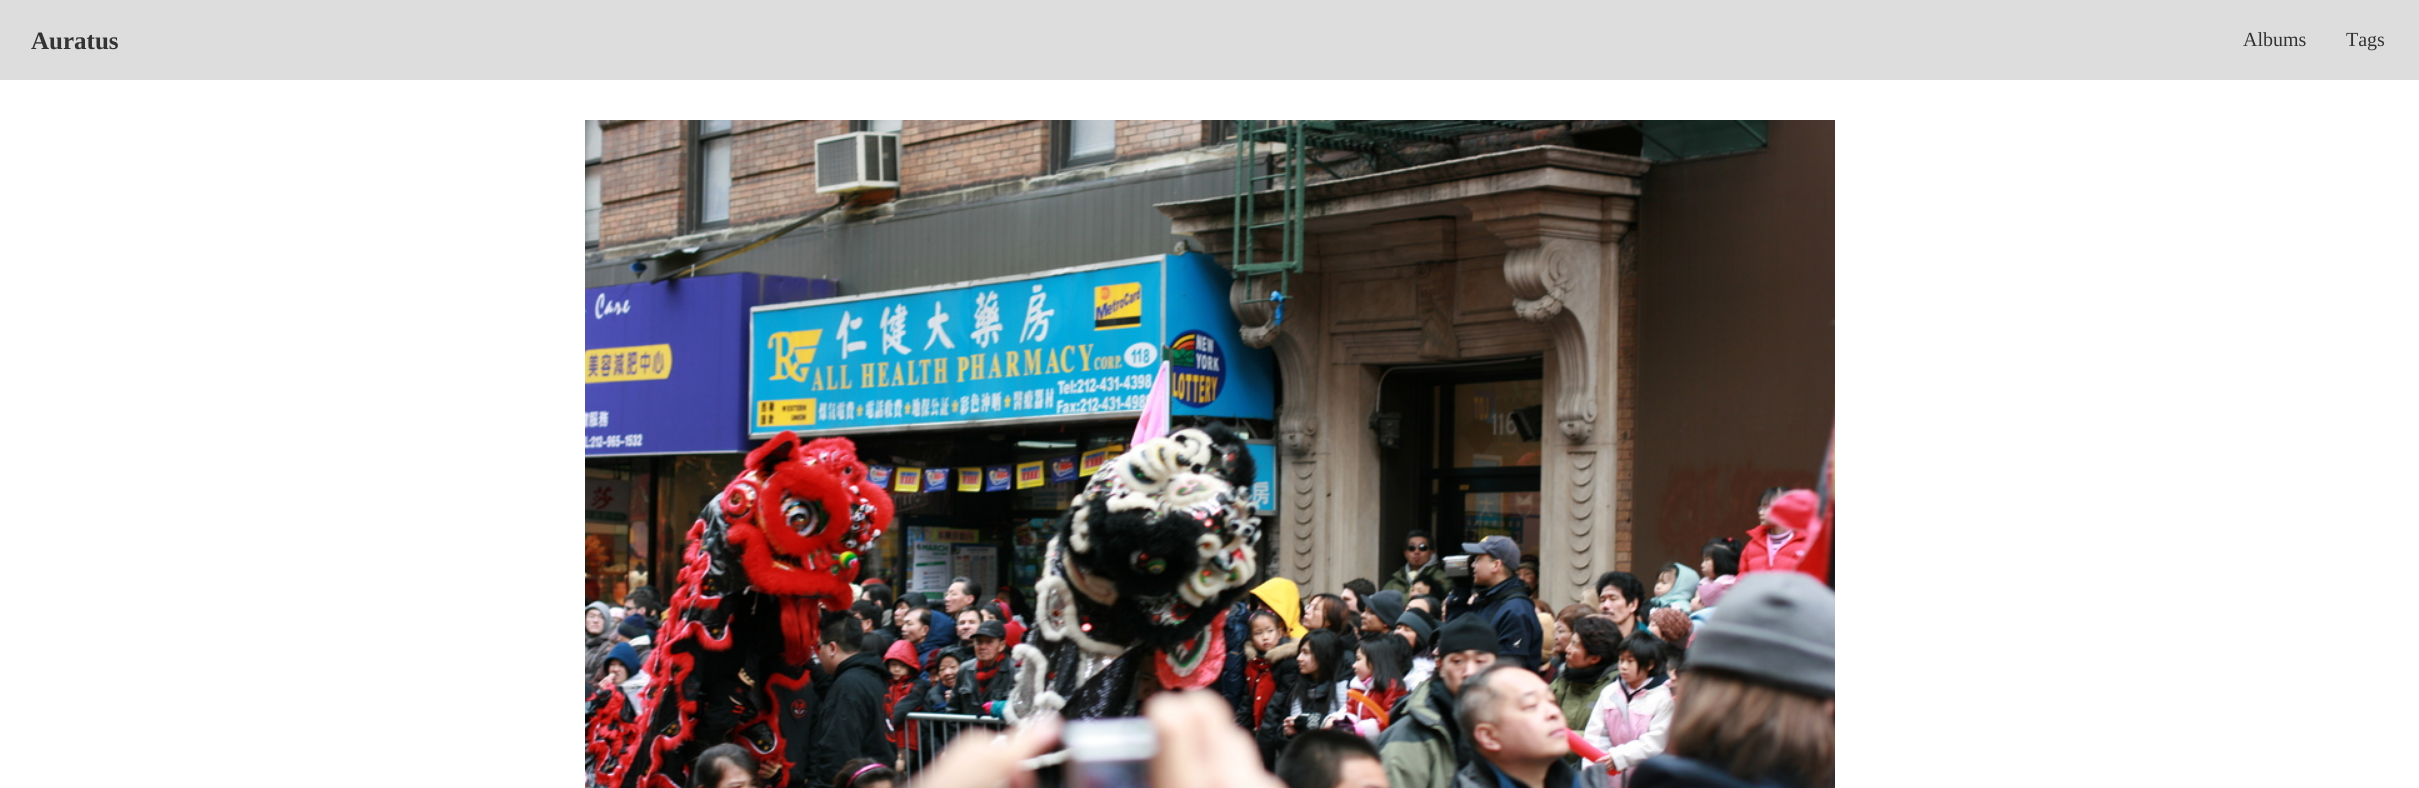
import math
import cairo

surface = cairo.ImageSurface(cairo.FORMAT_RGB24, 2419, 788)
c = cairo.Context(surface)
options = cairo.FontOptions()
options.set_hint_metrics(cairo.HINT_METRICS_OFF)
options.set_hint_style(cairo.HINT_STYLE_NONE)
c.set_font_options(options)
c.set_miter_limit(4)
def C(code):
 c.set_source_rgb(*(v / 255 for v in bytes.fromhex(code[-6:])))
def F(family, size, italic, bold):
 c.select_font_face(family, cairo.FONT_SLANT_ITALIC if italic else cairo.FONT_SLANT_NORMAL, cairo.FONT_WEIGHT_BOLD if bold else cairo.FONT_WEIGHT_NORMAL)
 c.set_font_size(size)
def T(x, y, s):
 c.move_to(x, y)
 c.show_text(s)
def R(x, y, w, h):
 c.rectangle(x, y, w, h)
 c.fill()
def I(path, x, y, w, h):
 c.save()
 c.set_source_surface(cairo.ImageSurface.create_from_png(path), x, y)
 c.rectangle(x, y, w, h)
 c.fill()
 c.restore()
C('ffffff')
c.paint()
C('dddddd')
R(0,0,2419,80)
F('Liberation Serif',25,0,1)
C('333333')
T(31,49,'Auratus')
F('Liberation Serif',20,0,0)
T(2243,46,'Albums')
T(2346,46,'Tags')
I('1.png',585,120,1250,668)
surface.write_to_png('o.png')
